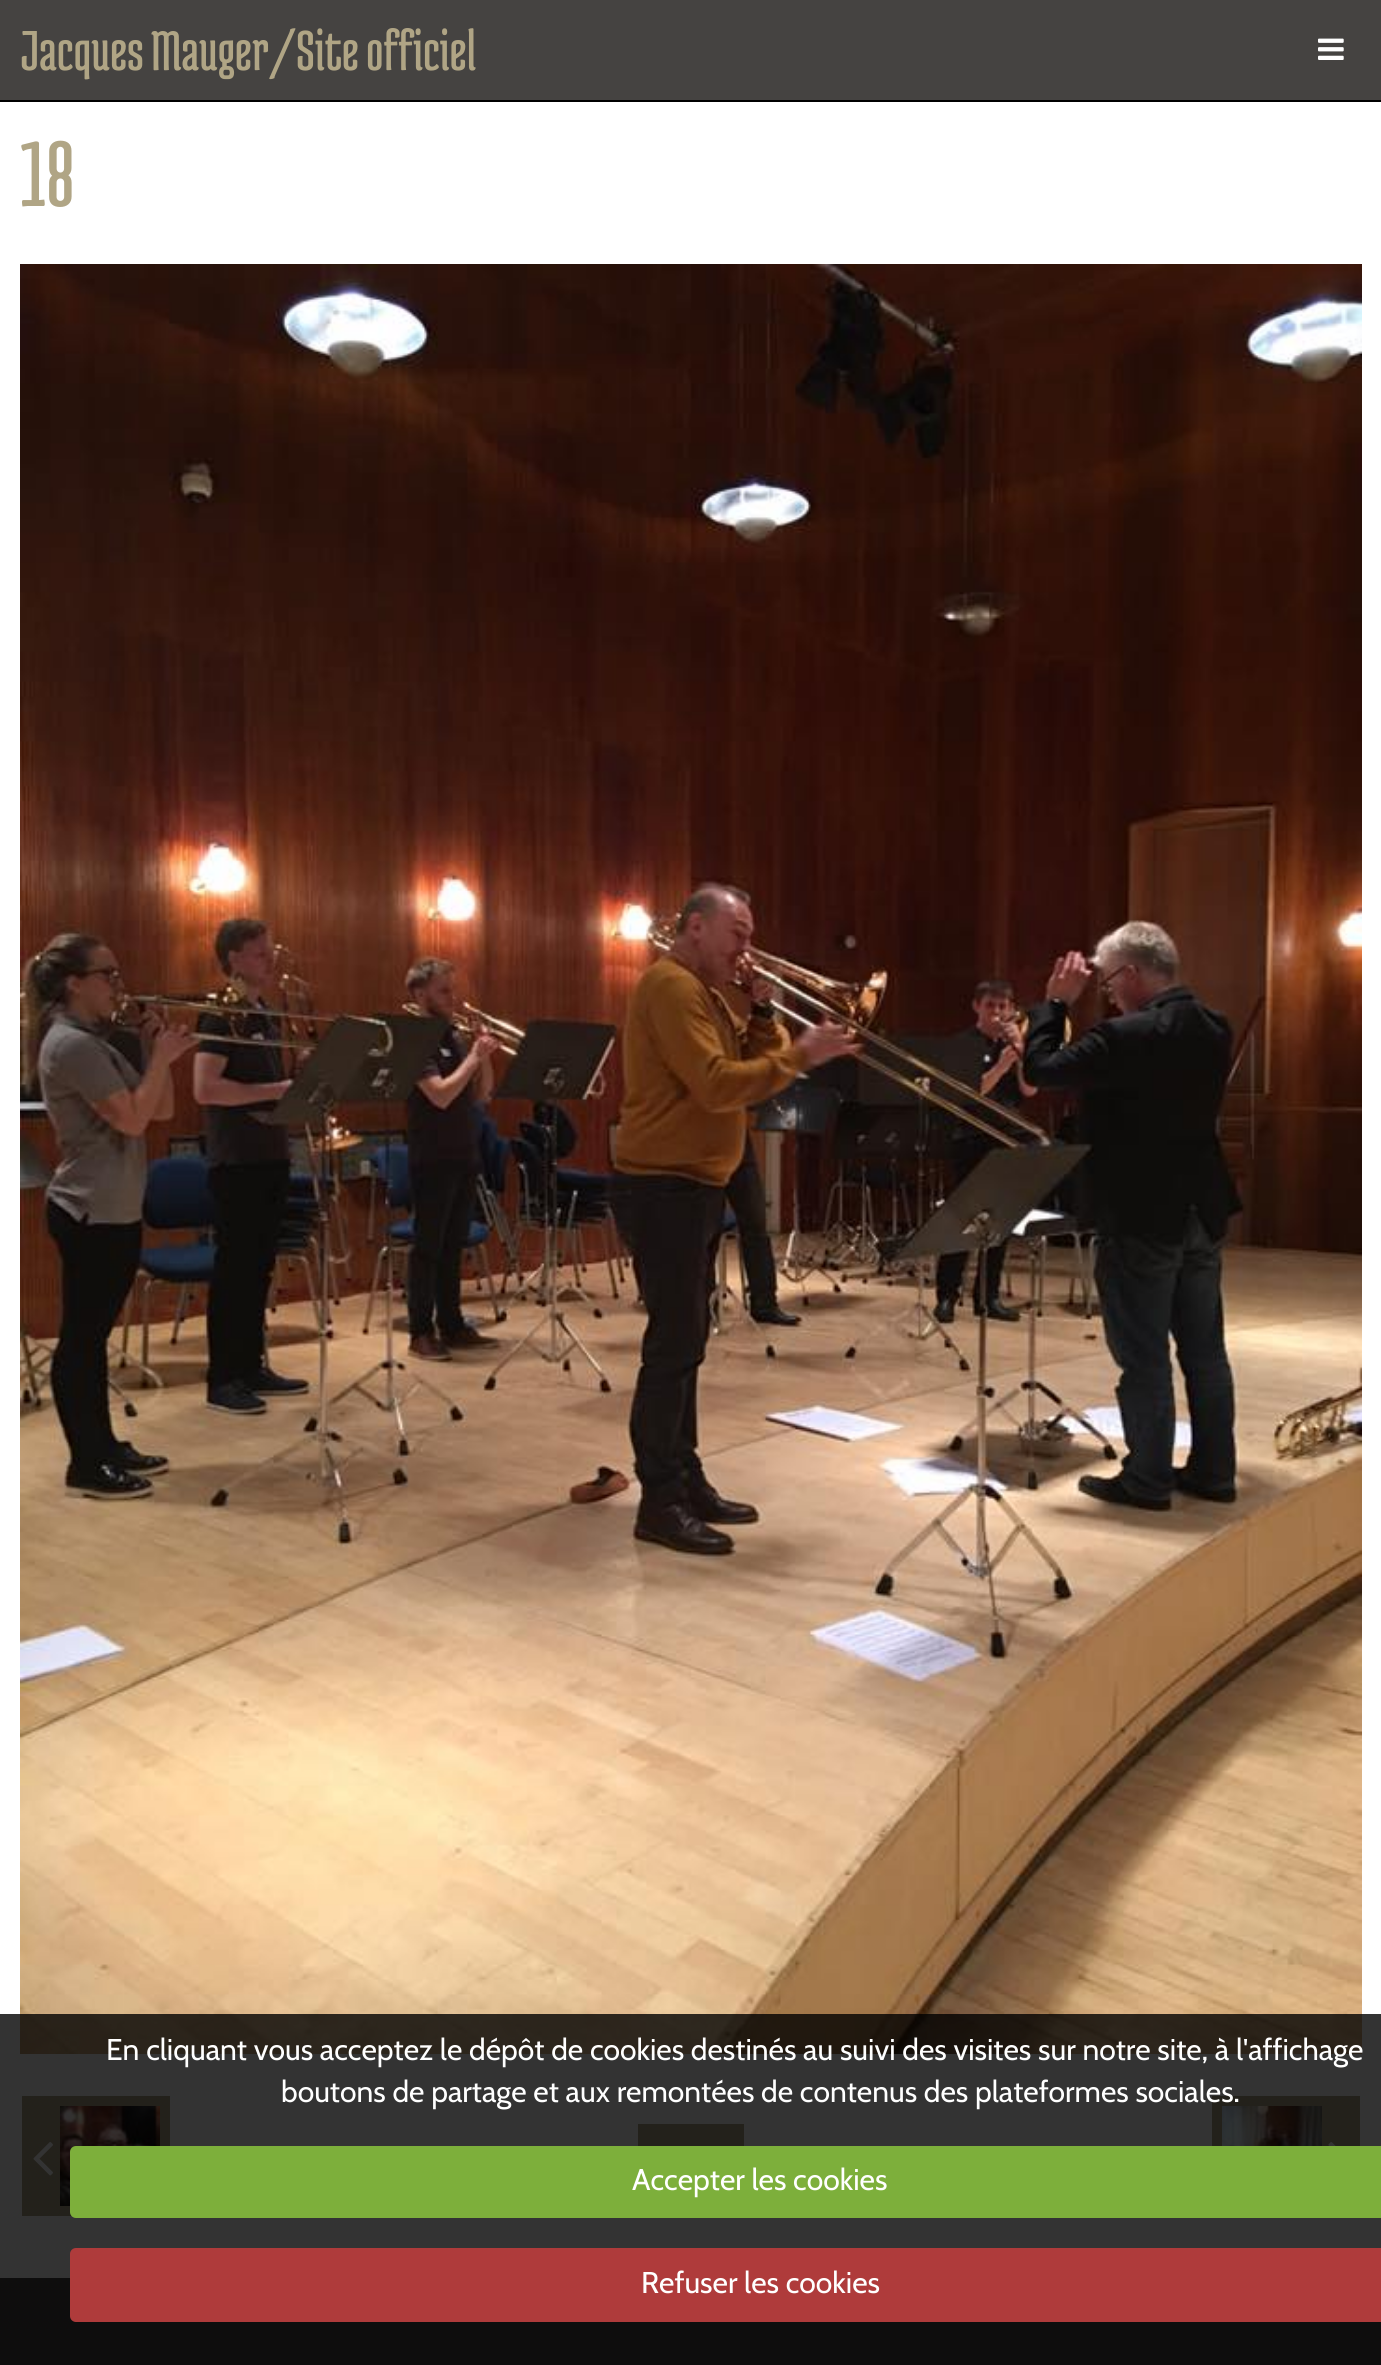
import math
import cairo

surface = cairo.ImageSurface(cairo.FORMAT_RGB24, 1381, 2365)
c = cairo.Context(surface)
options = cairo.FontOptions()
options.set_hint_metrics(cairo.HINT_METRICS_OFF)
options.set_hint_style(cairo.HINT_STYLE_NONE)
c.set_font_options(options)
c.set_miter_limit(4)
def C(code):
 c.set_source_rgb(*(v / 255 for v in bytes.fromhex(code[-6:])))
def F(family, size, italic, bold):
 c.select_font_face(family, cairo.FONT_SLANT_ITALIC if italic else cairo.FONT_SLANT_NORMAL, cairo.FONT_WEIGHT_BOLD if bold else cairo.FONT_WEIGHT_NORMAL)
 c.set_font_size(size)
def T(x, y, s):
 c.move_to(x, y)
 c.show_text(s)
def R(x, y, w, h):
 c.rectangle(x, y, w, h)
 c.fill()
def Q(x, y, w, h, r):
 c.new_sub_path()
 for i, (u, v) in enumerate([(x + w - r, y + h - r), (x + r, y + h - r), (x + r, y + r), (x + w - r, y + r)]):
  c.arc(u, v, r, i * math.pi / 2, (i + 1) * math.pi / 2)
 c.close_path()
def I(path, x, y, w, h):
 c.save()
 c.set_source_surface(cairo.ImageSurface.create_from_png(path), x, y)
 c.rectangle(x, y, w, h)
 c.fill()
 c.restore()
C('ffffff')
c.paint()
C('454341')
R(0,0,1381,100)
C('000000')
R(0,100,1381,2)
F('Medula One',60,0,0)
C('b0a585')
T(20,70,'Jacques Mauger/Site officiel')
I('1.png',1318,38,26,22)
F('Medula One',99,0,0)
T(20,206,'18')
I('2.png',20,264,1342,1790)
R(22,2096,148,120)
I('3.png',33,2142,20,34)
I('4.png',60,2106,100,100)
R(638,2124,106,22)
R(1212,2096,148,50)
I('5.png',1222,2106,100,40)
I('6.png',1328,2142,8,4)
C('454341')
R(0,2278,1381,87)
c.set_source_rgba(0,0,0,0.8)
R(0,2014,1381,351)
F('Cabin',30,0,0)
C('ffffff')
T(106,2060,'En cliquant vous acceptez le dépôt de cookies destinés au suivi des visites sur notre site, à l\'affichage')
T(281,2102,'boutons de partage et aux remontées de contenus des plateformes sociales.')
C('7daf3b')
Q(70,2146,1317,72,6)
c.fill()
C('ffffff')
T(632,2190,'Accepter les cookies')
C('af3b3b')
Q(70,2248,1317,74,6)
c.fill()
C('ffffff')
T(641,2293,'Refuser les cookies')
surface.write_to_png('o.png')
